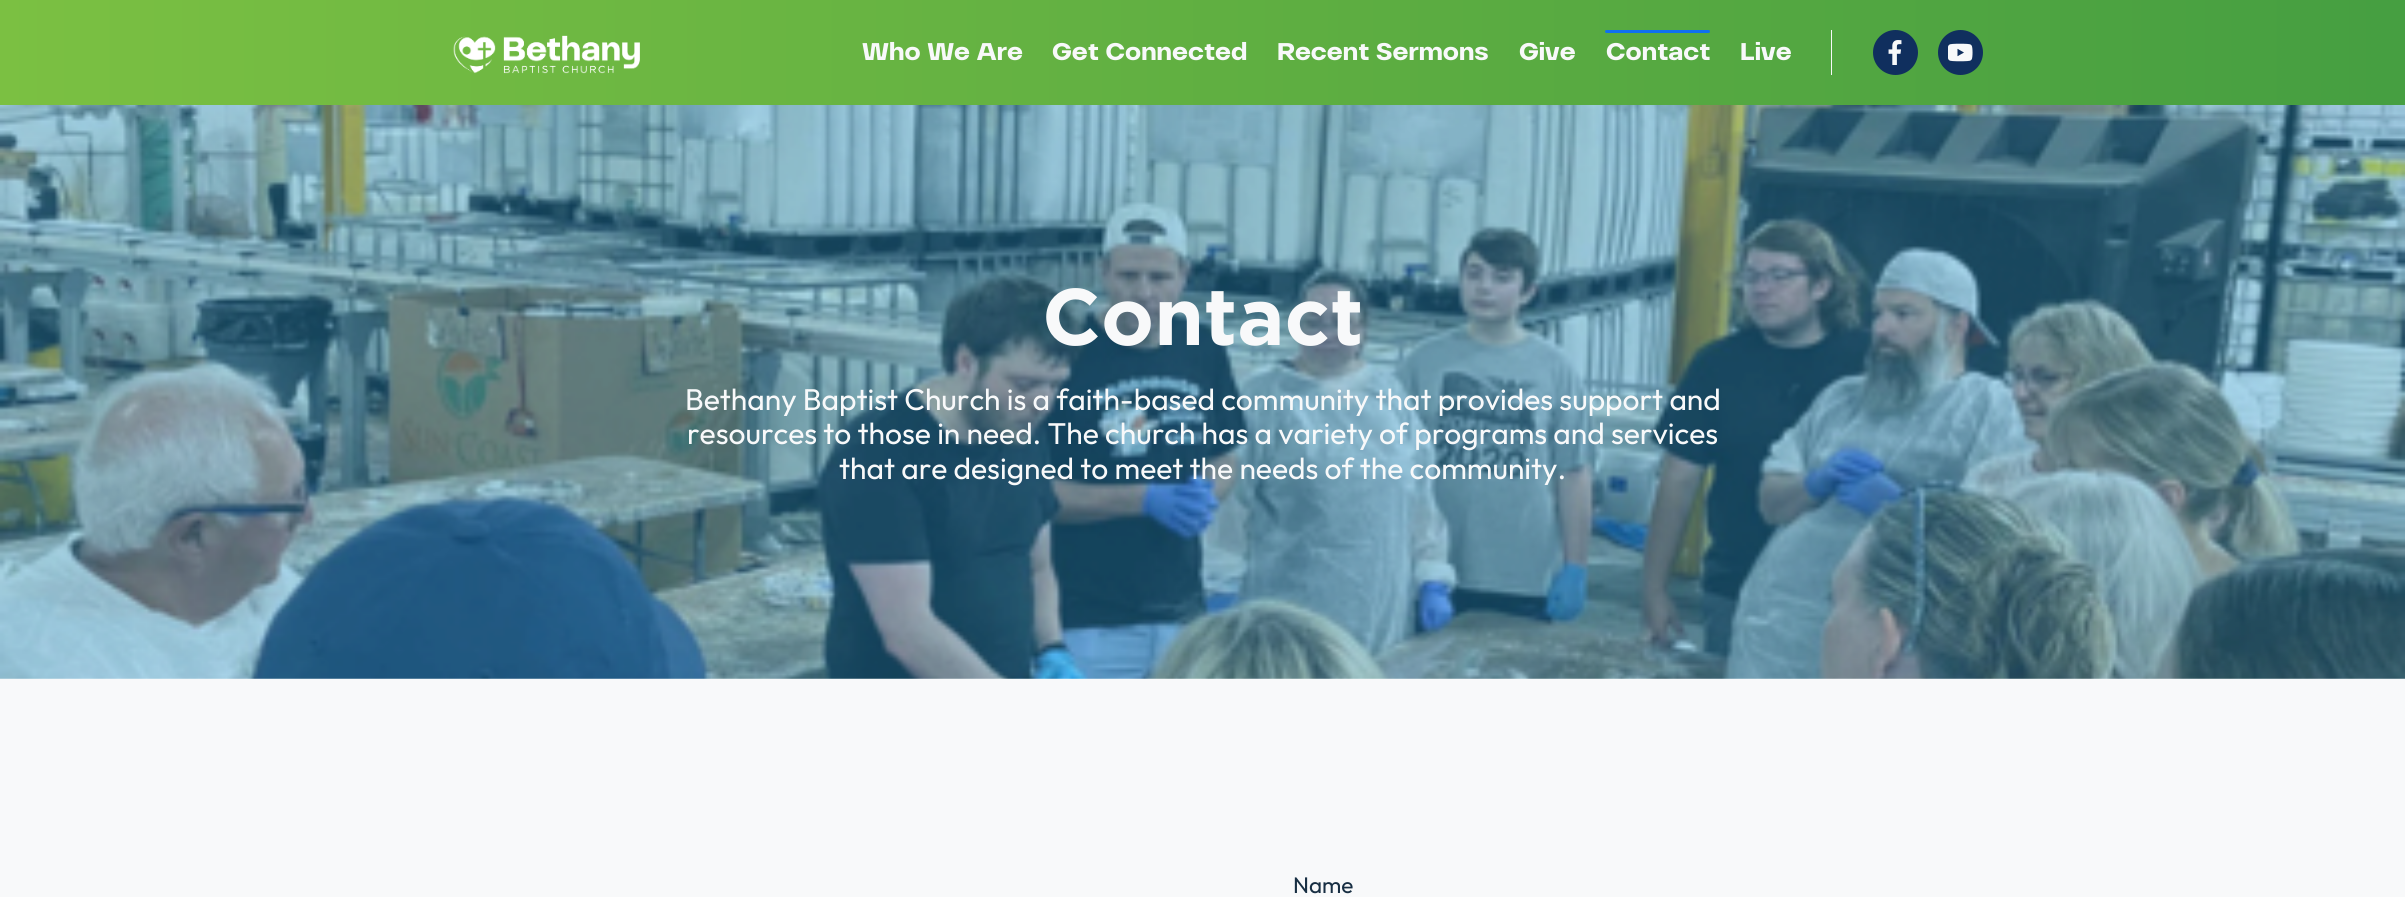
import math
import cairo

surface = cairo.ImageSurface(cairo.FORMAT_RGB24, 2405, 897)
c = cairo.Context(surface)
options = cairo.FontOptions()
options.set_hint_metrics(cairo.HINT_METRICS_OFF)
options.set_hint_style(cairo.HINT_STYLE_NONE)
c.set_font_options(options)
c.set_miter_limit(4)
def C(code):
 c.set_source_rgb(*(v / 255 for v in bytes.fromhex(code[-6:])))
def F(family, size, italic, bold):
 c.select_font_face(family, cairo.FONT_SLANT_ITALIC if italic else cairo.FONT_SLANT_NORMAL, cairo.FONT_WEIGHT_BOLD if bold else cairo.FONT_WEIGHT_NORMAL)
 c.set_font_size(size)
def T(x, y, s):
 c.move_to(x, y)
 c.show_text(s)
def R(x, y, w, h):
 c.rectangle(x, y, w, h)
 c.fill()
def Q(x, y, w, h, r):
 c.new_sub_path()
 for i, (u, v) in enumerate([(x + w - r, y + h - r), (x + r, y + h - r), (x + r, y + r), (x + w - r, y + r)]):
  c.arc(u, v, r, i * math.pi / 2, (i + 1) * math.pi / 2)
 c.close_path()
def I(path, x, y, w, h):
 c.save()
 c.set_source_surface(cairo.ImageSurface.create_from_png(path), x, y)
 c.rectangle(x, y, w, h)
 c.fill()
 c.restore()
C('f8f9fa')
c.paint()
gradient = cairo.LinearGradient(0,95,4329,94)
gradient.add_color_stop_rgba(0,0.482,0.753,0.259,1)
gradient.add_color_stop_rgba(1,0.106,0.518,0.251,1)
c.set_source(gradient)
R(0,0,2405,105)
I('1.png',453,35,187,39)
C('f8f9fa')
R(1831,30,1,45)
F('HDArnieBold',24,0,1)
T(862,60,'Who We Are')
T(1052,60,'Get Connected')
T(1277,60,'Recent Sermons')
T(1519,60,'Give')
C('0f70f1')
Q(1605,30,105,3,1.5)
c.fill()
C('f8f9fa')
T(1606,60,'Contact')
T(1740,60,'Live')
C('102f5e')
c.new_path()
c.arc(1895.5,52.5,22.5,0,2 * math.pi)
c.fill()
I('2.png',1888,40,14,25)
c.arc(1960.5,52.5,22.5,0,2 * math.pi)
c.fill()
I('3.png',1948,43,25,19)
I('4.png',0,105,2405,574)
F('Gotham',80,0,1)
C('f8f9fa')
T(1042,345,'Contact')
F('Outfit',30,0,0)
T(685,410,'Bethany Baptist Church is a faith-based community that provides support and')
T(687,444,'resources to those in need. The church has a variety of programs and services')
T(839,479,'that are designed to meet the needs of the community.')
F('Outfit',22.5,0,0)
C('182f43')
T(1293,893,'Name')
surface.write_to_png('o.png')
